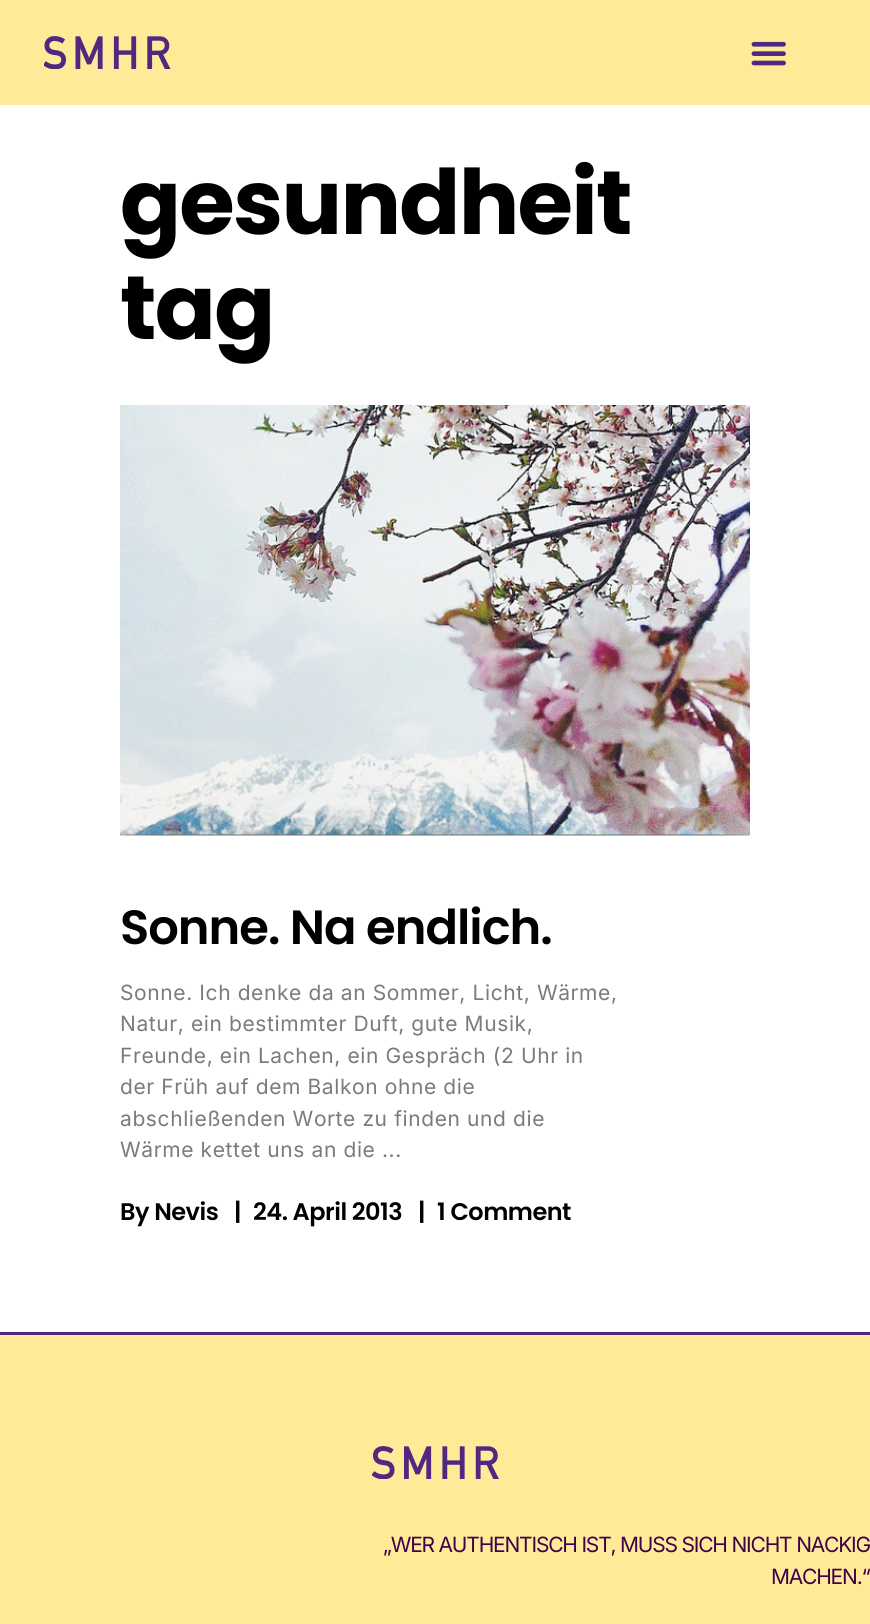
import math
import cairo

surface = cairo.ImageSurface(cairo.FORMAT_RGB24, 870, 1624)
c = cairo.Context(surface)
options = cairo.FontOptions()
options.set_hint_metrics(cairo.HINT_METRICS_OFF)
options.set_hint_style(cairo.HINT_STYLE_NONE)
c.set_font_options(options)
c.set_miter_limit(4)
def C(code):
 c.set_source_rgb(*(v / 255 for v in bytes.fromhex(code[-6:])))
def F(family, size, italic, bold):
 c.select_font_face(family, cairo.FONT_SLANT_ITALIC if italic else cairo.FONT_SLANT_NORMAL, cairo.FONT_WEIGHT_BOLD if bold else cairo.FONT_WEIGHT_NORMAL)
 c.set_font_size(size)
def L(x, y, s, letter, word):
 c.move_to(x, y)
 for ch in s:
  c.show_text(ch)
  c.rel_move_to(letter + word * (ch == ' '), 0)
def R(x, y, w, h):
 c.rectangle(x, y, w, h)
 c.fill()
def I(path, x, y, w, h):
 c.save()
 c.set_source_surface(cairo.ImageSurface.create_from_png(path), x, y)
 c.rectangle(x, y, w, h)
 c.fill()
 c.restore()
C('ffeb97')
c.paint()
I('1.png',44,36,127,33)
I('2.png',751,41,35,25)
C('ffffff')
R(0,105,870,1227)
F('Poppins',90,0,1)
C('000000')
L(120,234,'gesundheit',-1.75,0)
L(120,339,'tag',-1.75,0)
I('3.png',120,405,630,431)
F('Poppins SemiBold',48,0,0)
L(120,944,'Sonne. Na endlich.',-1,0)
F('Inter',21,0,0)
C('7b7b7b')
L(120,1000,'Sonne. Ich denke da an Sommer, Licht, Wärme,',.6,0)
L(120,1031,'Natur, ein bestimmter Duft, gute Musik,',.6,0)
L(120,1063,'Freunde, ein Lachen, ein Gespräch (2 Uhr in',.6,0)
L(120,1094,'der Früh auf dem Balkon ohne die',.6,0)
L(120,1126,'abschließenden Worte zu finden und die',.6,0)
L(120,1157,'Wärme kettet uns an die ...',.6,0)
F('Poppins SemiBold',24,0,0)
C('000000')
L(120,1220,'By Nevis',-.5,0)
L(234,1220,'|',-.5,0)
L(253,1220,'24. April 2013',-.5,0)
L(418,1220,'|',-.5,0)
L(437,1220,'1 Comment',-.5,0)
C('502880')
R(0,1332,870,3)
I('4.png',372,1446,127,33)
F('Inter',21,0,0)
C('40014a')
L(383,1552,'„WER AUTHENTISCH IST, MUSS SICH NICHT NACKIG',-1.2,0)
L(771,1584,'MACHEN.“',-1.2,0)
surface.write_to_png('o.png')
